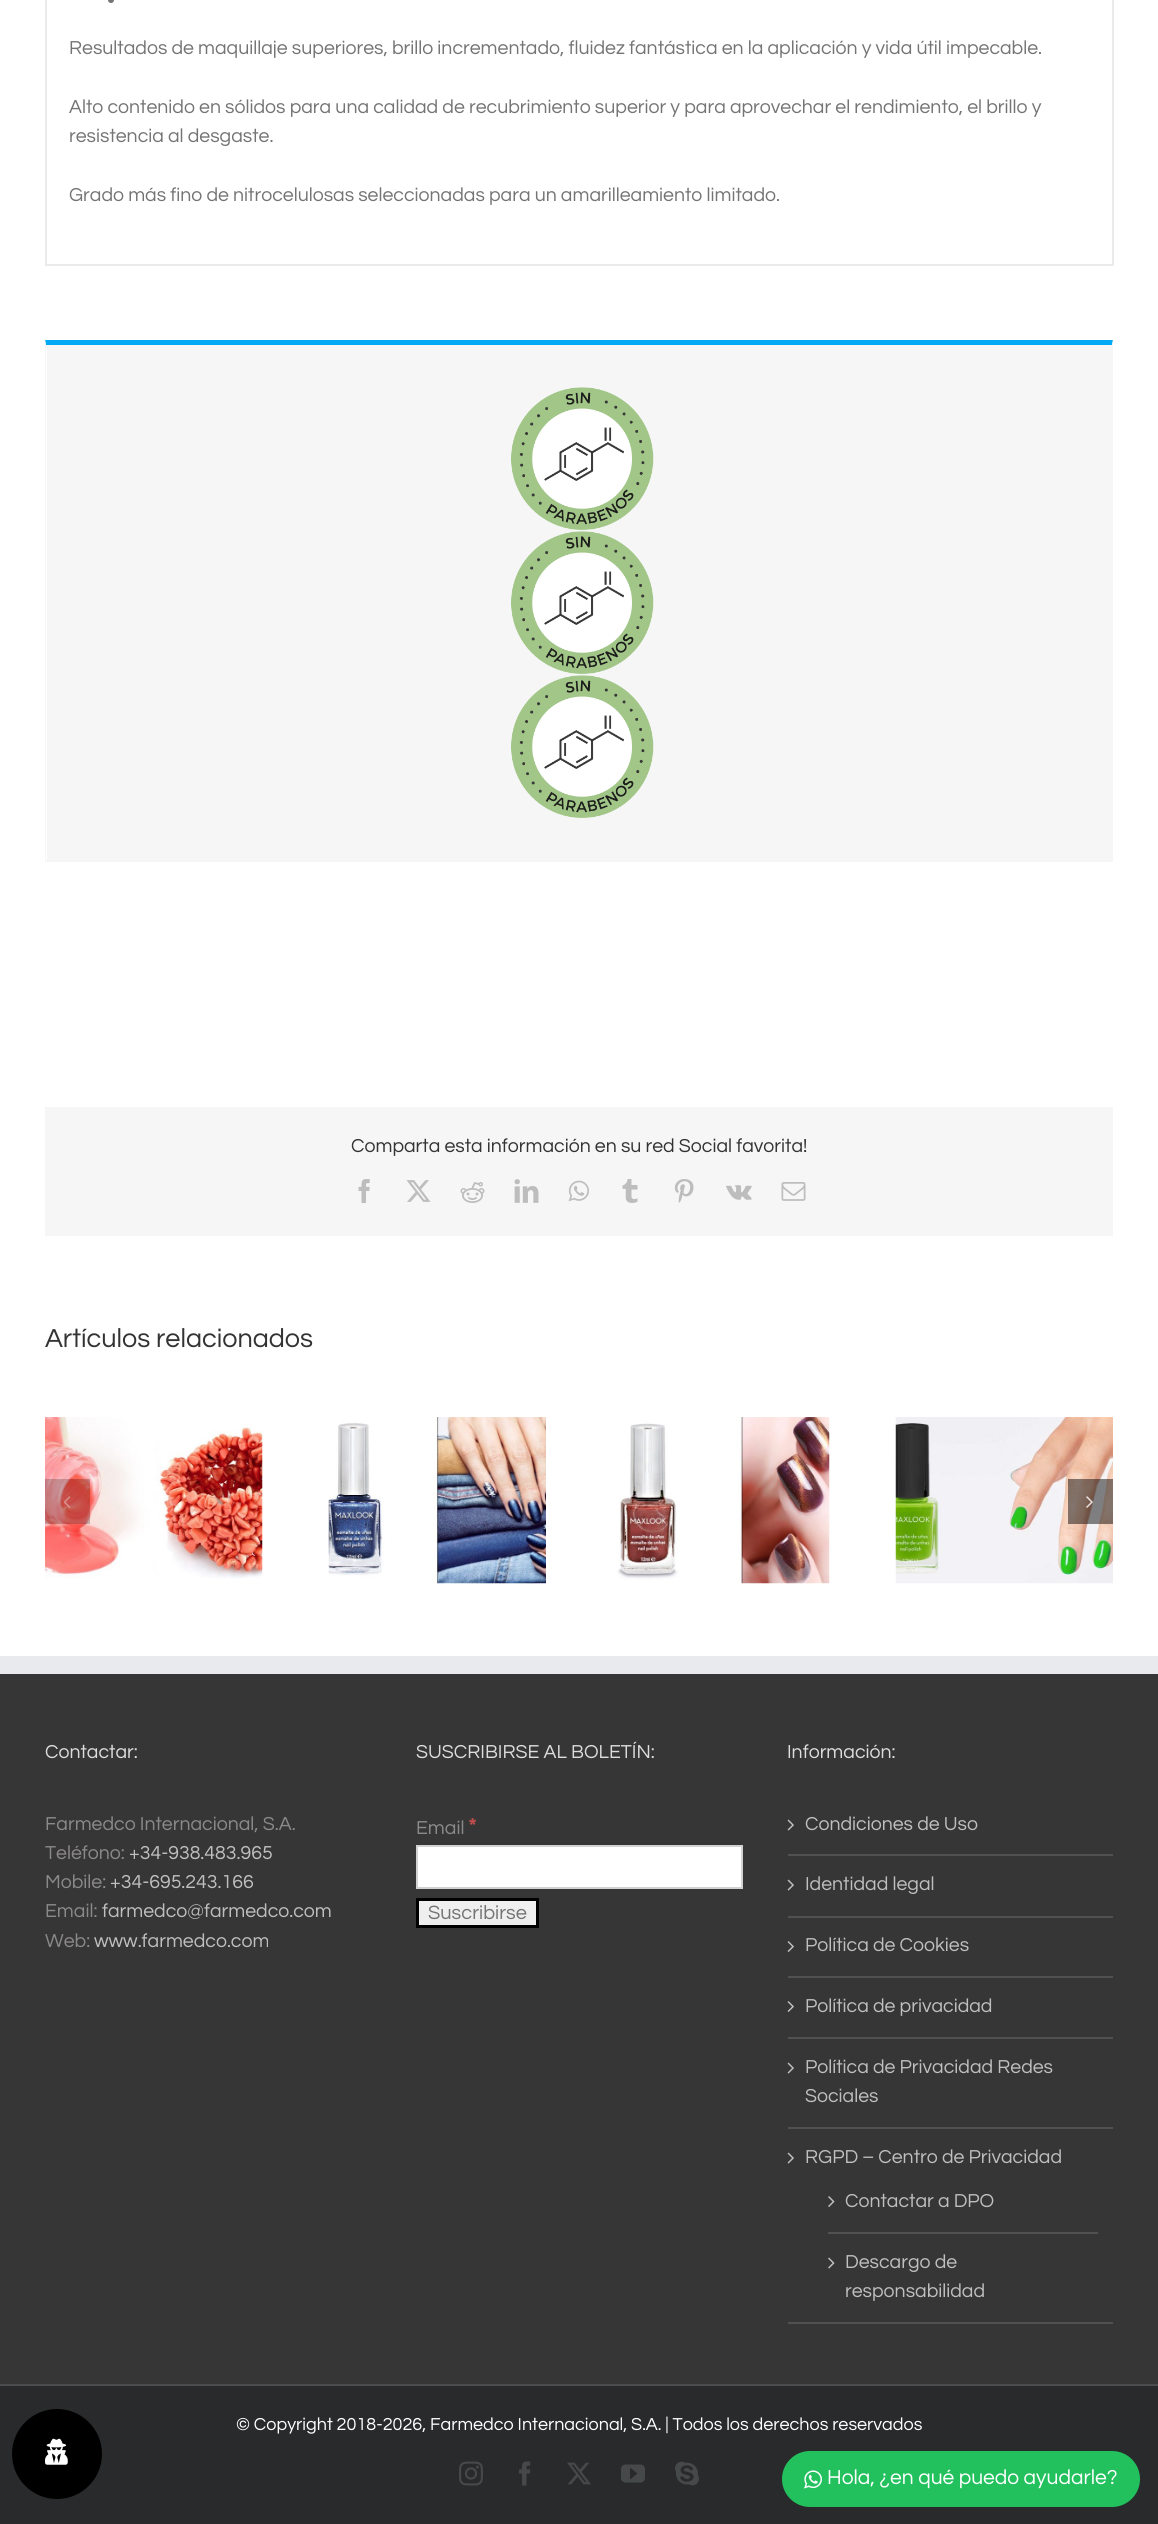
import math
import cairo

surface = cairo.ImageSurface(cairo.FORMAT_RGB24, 1158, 2524)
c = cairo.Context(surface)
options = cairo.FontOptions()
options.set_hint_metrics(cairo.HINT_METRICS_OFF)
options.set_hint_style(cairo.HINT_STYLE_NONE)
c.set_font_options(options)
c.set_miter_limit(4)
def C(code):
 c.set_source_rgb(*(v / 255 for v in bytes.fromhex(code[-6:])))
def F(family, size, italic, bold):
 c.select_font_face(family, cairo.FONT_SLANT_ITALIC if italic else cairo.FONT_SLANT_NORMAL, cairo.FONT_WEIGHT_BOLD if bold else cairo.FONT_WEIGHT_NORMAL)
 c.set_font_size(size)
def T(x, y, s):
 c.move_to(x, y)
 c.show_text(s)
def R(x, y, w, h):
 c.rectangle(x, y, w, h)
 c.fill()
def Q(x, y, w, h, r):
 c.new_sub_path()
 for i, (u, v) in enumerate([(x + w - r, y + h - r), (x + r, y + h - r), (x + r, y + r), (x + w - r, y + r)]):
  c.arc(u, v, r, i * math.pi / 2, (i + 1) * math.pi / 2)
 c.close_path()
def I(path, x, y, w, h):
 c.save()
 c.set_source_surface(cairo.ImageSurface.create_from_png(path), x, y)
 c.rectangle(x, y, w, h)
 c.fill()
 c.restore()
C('ffffff')
c.paint()
C('ebeaea')
R(1112,0,2,266)
R(45,264,1068,2)
R(45,0,2,266)
C('747474')
c.arc(111,0,3,0,2 * math.pi)
c.fill()
F('Questrial',19.5,0,0)
T(69,54,'Resultados de maquillaje superiores, brillo incrementado, fluidez fantástica en la aplicación y vida útil impecable.')
T(69,113,'Alto contenido en sólidos para una calidad de recubrimiento superior y para aprovechar el rendimiento, el brillo y')
T(69,142,'resistencia al desgaste.')
T(69,201,'Grado más fino de nitrocelulosas seleccionadas para un amarilleamiento limitado.')
C('f6f6f6')
R(47,345,1065,515)
C('03a9f4')
c.new_path()
c.move_to(45,340)
c.line_to(1113,340)
c.line_to(1112,345)
c.line_to(46,345)
c.close_path()
c.fill()
C('f6f6f6')
c.new_path()
c.move_to(1113,340)
c.line_to(1113,861)
c.line_to(1112,860)
c.line_to(1112,345)
c.close_path()
c.fill()
R(45,860,1068,2)
c.new_path()
c.move_to(45,861)
c.line_to(45,340)
c.line_to(46,345)
c.line_to(46,860)
c.close_path()
c.fill()
I('1.png',511,387,143,143)
I('1.png',511,531,143,143)
I('2.png',511,675,143,143)
R(45,1107,1068,129)
C('333333')
T(351,1152,'Comparta esta información en su red Social favorita!')
I('3.png',358,1179,12,24)
I('4.png',406,1180,25,22)
I('5.png',460,1182,25,21)
I('6.png',514,1179,25,24)
I('7.png',568,1180,21,22)
I('8.png',622,1179,16,24)
I('9.png',674,1179,20,24)
I('10.png',726,1185,26,15)
I('11.png',781,1182,25,19)
F('Questrial',27,0,0)
T(45,1347,'Artículos relacionados')
I('12.png',45,1417,218,162)
I('13.png',328,1417,218,167)
I('14.png',617,1417,213,167)
I('15.png',895,1417,218,167)
c.set_source_rgba(0,0,0,0.21)
R(45,1479,45,45)
I('16.png',63,1496,8,12)
c.set_source_rgba(0,0,0,0.48)
R(1068,1479,45,45)
I('17.png',1086,1496,7,12)
C('363636')
R(0,1674,1158,710)
C('e9eaee')
R(0,1656,1158,18)
F('Questrial',19.5,0,0)
C('dddddd')
T(45,1758,'Contactar:')
C('8c8989')
T(45,1830,'Farmedco Internacional, S.A.')
T(45,1859,'Teléfono:')
C('bfbfbf')
T(129,1859,'+34-938.483.965')
C('8c8989')
T(45,1888,'Mobile:')
C('bfbfbf')
T(110,1888,'+34-695.243.166')
C('8c8989')
T(45,1917,'Email:')
C('bfbfbf')
T(102,1917,'farmedco@farmedco.com')
C('8c8989')
T(45,1947,'Web:')
C('bfbfbf')
T(94,1947,'www.farmedco.com')
C('dddddd')
T(416,1758,'SUSCRIBIRSE AL BOLETÍN:')
C('8c8989')
T(416,1834,'Email')
F('Questrial',23,0,1)
C('bf4d4d')
T(468,1834,'*')
C('ffffff')
c.rectangle(417,1846,325,42)
c.fill_preserve()
C('d2d2d2')
c.stroke()
C('efefef')
c.rectangle(417.5,1899.5,120,27)
c.fill_preserve()
C('000000')
c.set_line_width(3)
c.stroke()
F('Questrial',20,0,0)
C('747474')
T(428,1919,'Suscribirse')
F('Questrial',19.5,0,0)
C('dddddd')
T(787,1758,'Información:')
C('505152')
R(788,1854,325,2)
I('18.png',787,1819,7,12)
C('bfbfbf')
T(805,1830,'Condiciones de Uso')
C('505152')
R(788,1916,325,2)
I('18.png',787,1879,7,12)
C('bfbfbf')
T(805,1890,'Identidad legal')
C('505152')
R(788,1976,325,2)
I('19.png',787,1941,7,11)
C('bfbfbf')
T(805,1951,'Política de Cookies')
C('505152')
R(788,2037,325,2)
I('19.png',787,2001,7,11)
C('bfbfbf')
T(805,2012,'Política de privacidad')
C('505152')
R(788,2127,325,2)
I('18.png',787,2062,7,12)
C('bfbfbf')
T(805,2073,'Política de Privacidad Redes')
T(805,2102,'Sociales')
C('505152')
R(788,2322,325,2)
I('18.png',787,2152,7,12)
C('bfbfbf')
T(805,2163,'RGPD – Centro de Privacidad')
C('505152')
R(828,2232,270,2)
I('20.png',828,2196,7,11)
C('bfbfbf')
T(845,2207,'Contactar a DPO')
I('21.png',828,2257,7,12)
T(845,2268,'Descargo de')
T(845,2297,'responsabilidad')
C('282a2b')
R(0,2386,1158,138)
C('4b4c4d')
R(0,2384,1158,2)
F('Questrial',18,0,0)
C('ffffff')
T(236,2430,'© Copyright 2018-2026, Farmedco Internacional, S.A. | Todos los derechos reservados')
I('22.png',459,2461,24,25)
I('23.png',519,2461,12,25)
I('24.png',567,2462,24,23)
I('25.png',621,2464,24,19)
I('26.png',675,2461,24,25)
C('000000')
c.arc(57,2454,45,0,2 * math.pi)
c.fill()
I('27.png',45,2438,23,27)
C('22c15e')
Q(782,2451,358,56,28)
c.fill()
I('28.png',804,2470,18,19)
F('Questrial',21,0,0)
C('ffffff')
T(827,2484,'Hola, ¿en qué puedo ayudarle?')
surface.write_to_png('o.png')
